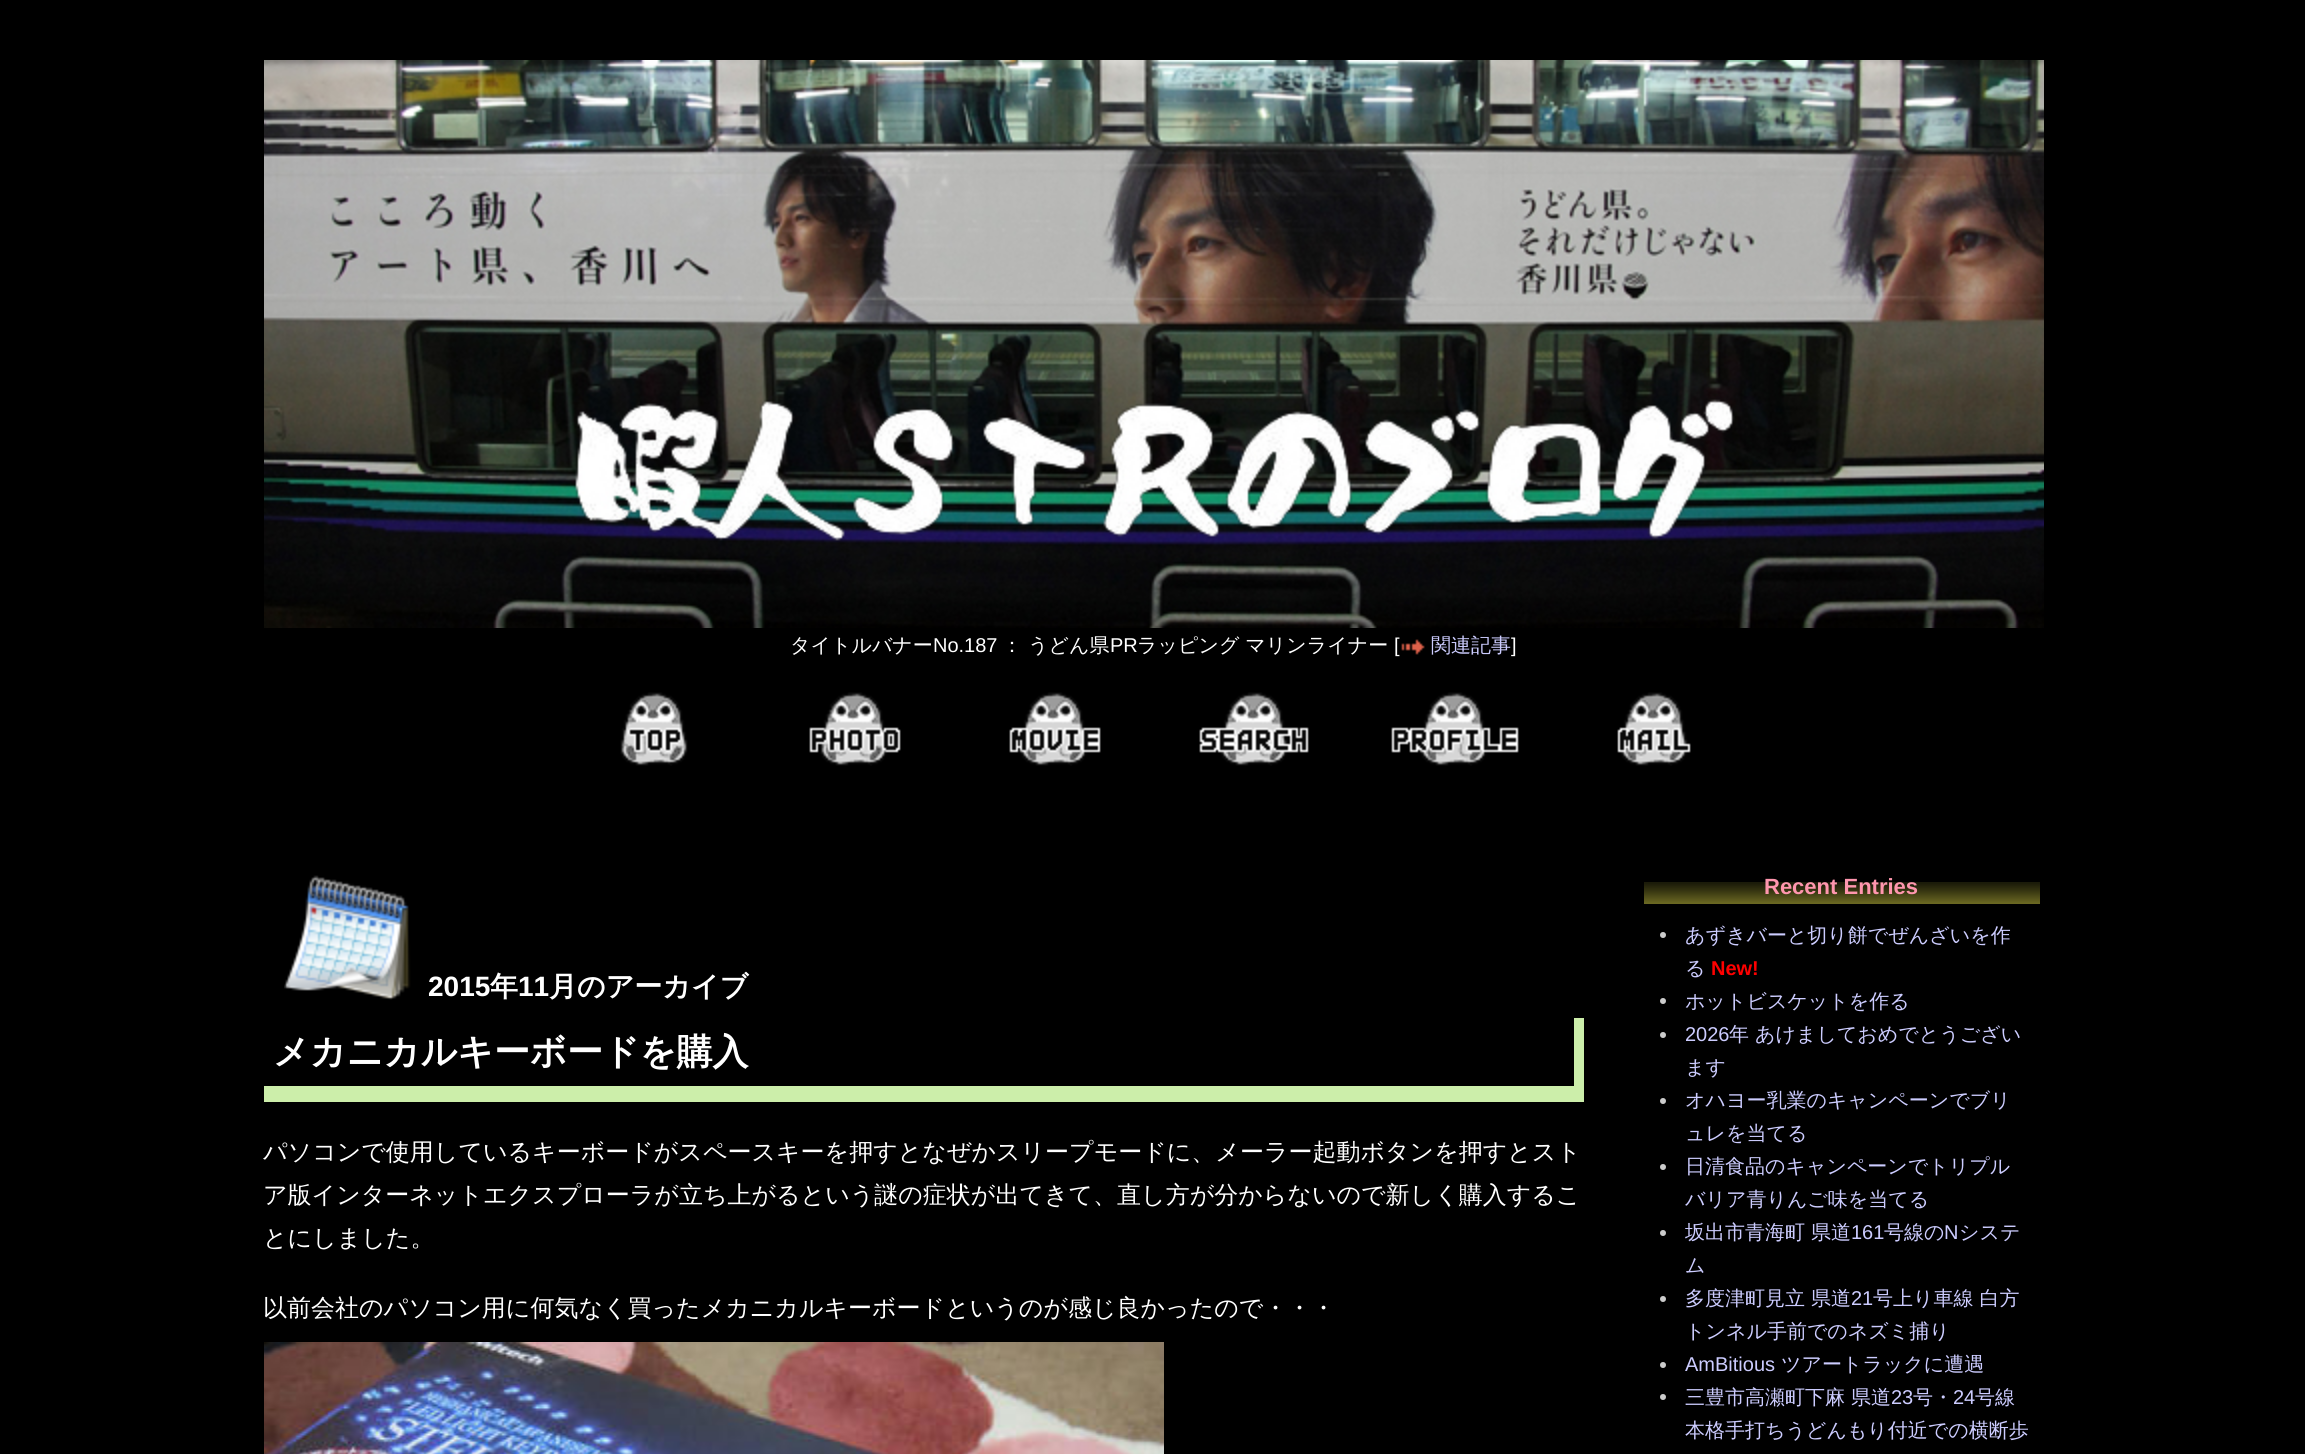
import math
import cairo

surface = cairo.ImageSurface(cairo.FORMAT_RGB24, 2305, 1454)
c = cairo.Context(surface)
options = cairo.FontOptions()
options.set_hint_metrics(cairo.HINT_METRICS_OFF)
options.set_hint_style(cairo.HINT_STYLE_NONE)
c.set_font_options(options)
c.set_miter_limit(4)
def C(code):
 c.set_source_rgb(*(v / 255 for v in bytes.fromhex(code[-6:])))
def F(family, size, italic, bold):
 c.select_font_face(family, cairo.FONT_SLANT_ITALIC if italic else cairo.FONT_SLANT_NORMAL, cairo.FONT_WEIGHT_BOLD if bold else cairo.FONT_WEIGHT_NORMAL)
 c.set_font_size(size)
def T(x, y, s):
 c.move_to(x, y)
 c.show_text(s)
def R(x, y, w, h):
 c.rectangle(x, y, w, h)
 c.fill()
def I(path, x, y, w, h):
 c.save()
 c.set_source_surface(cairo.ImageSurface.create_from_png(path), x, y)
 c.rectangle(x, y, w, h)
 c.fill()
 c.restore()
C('000000')
c.paint()
I('1.png',264,60,1780,568)
F('WenQuanYi Zen Hei Medium',20,0,0)
C('ffffff')
T(790,652,'タイトルバナー')
F('Liberation Sans',20,0,0)
T(933,652,'No.187')
F('WenQuanYi Zen Hei Medium',20,0,0)
T(1002,652,'： うどん県')
F('Liberation Sans',20,0,0)
T(1110,652,'PR')
F('WenQuanYi Zen Hei Medium',20,0,0)
T(1137,652,'ラッピング マリンライナー')
F('Liberation Sans',20,0,0)
T(1394,652,'[')
I('2.png',1401,639,24,16)
F('WenQuanYi Zen Hei Medium',20,0,0)
C('ccccff')
T(1431,652,'関連記事')
F('Liberation Sans',20,0,0)
C('ffffff')
T(1511,652,']')
I('3.png',620,692,68,74)
I('4.png',809,692,92,74)
I('5.png',1009,692,92,74)
I('6.png',1199,692,110,74)
I('7.png',1391,692,128,74)
I('8.png',1617,692,74,74)
I('9.png',284,875,127,125)
F('Liberation Sans',28,0,1)
T(428,996,'2015')
F('WenQuanYi Zen Hei',28,0,1)
T(490,996,'年')
F('Liberation Sans',28,0,1)
T(518,996,'11')
F('WenQuanYi Zen Hei',28,0,1)
T(549,996,'月のアーカイブ')
C('cceeaa')
R(1574,1018,10,68)
R(264,1086,1320,16)
F('WenQuanYi Zen Hei',36,0,1)
C('ffffff')
T(273,1064,'メカニカルキーボードを購入')
F('WenQuanYi Zen Hei Medium',24,0,0)
T(263,1160,'パソコンで使用しているキーボードがスペースキーを押すとなぜかスリープモードに、メーラー起動ボタンを押すとスト')
T(263,1203,'ア版インターネットエクスプローラが立ち上がるという謎の症状が出てきて、直し方が分からないので新しく購入するこ')
T(263,1246,'とにしました。')
T(263,1316,'以前会社のパソコン用に何気なく買ったメカニカルキーボードというのが感じ良かったので・・・')
I('10.png',264,1342,900,112)
I('11.png',1644,882,396,22)
F('Liberation Sans',22,0,1)
C('ff96ae')
T(1764,894,'Recent Entries')
C('cccccc')
c.new_path()
c.arc(1663,935,3,0,2 * math.pi)
c.fill()
F('WenQuanYi Zen Hei Medium',20,0,0)
C('ccccff')
T(1685,942,'あずきバーと切り餅でぜんざいを作')
T(1685,975,'る')
F('Liberation Sans',20,0,1)
C('ff0000')
T(1711,975,'New!')
C('cccccc')
c.new_path()
c.arc(1663,1001,3,0,2 * math.pi)
c.fill()
F('WenQuanYi Zen Hei Medium',20,0,0)
C('ccccff')
T(1685,1008,'ホットビスケットを作る')
C('cccccc')
c.new_path()
c.arc(1663,1035,3,0,2 * math.pi)
c.fill()
F('Liberation Sans',20,0,0)
C('ccccff')
T(1685,1041,'2026')
F('WenQuanYi Zen Hei Medium',20,0,0)
T(1729,1041,'年')
T(1755,1041,'あけましておめでとうござい')
T(1685,1074,'ます')
C('cccccc')
c.new_path()
c.arc(1663,1101,3,0,2 * math.pi)
c.fill()
C('ccccff')
T(1685,1107,'オハヨー乳業のキャンペーンでブリ')
T(1685,1140,'ュレを当てる')
C('cccccc')
c.new_path()
c.arc(1663,1167,3,0,2 * math.pi)
c.fill()
C('ccccff')
T(1685,1173,'日清食品のキャンペーンでトリプル')
T(1685,1206,'バリア青りんご味を当てる')
C('cccccc')
c.new_path()
c.arc(1663,1233,3,0,2 * math.pi)
c.fill()
C('ccccff')
T(1685,1239,'坂出市青海町 県道')
F('Liberation Sans',20,0,0)
T(1851,1239,'161')
F('WenQuanYi Zen Hei Medium',20,0,0)
T(1884,1239,'号線の')
F('Liberation Sans',20,0,0)
T(1944,1239,'N')
F('WenQuanYi Zen Hei Medium',20,0,0)
T(1959,1239,'システ')
T(1685,1272,'ム')
C('cccccc')
c.new_path()
c.arc(1663,1299,3,0,2 * math.pi)
c.fill()
C('ccccff')
T(1685,1305,'多度津町見立 県道')
F('Liberation Sans',20,0,0)
T(1851,1305,'21')
F('WenQuanYi Zen Hei Medium',20,0,0)
T(1873,1305,'号上り車線 白方')
T(1685,1338,'トンネル手前でのネズミ捕り')
C('cccccc')
c.new_path()
c.arc(1663,1365,3,0,2 * math.pi)
c.fill()
F('Liberation Sans',20,0,0)
C('ccccff')
T(1685,1371,'AmBitious')
F('WenQuanYi Zen Hei Medium',20,0,0)
T(1781,1371,'ツアートラックに遭遇')
C('cccccc')
c.new_path()
c.arc(1663,1397,3,0,2 * math.pi)
c.fill()
C('ccccff')
T(1685,1404,'三豊市高瀬町下麻 県道')
F('Liberation Sans',20,0,0)
T(1891,1404,'23')
F('WenQuanYi Zen Hei Medium',20,0,0)
T(1913,1404,'号・')
F('Liberation Sans',20,0,0)
T(1953,1404,'24')
F('WenQuanYi Zen Hei Medium',20,0,0)
T(1975,1404,'号線')
T(1685,1437,'本格手打ちうどんもり付近での横断歩')
surface.write_to_png('o.png')
